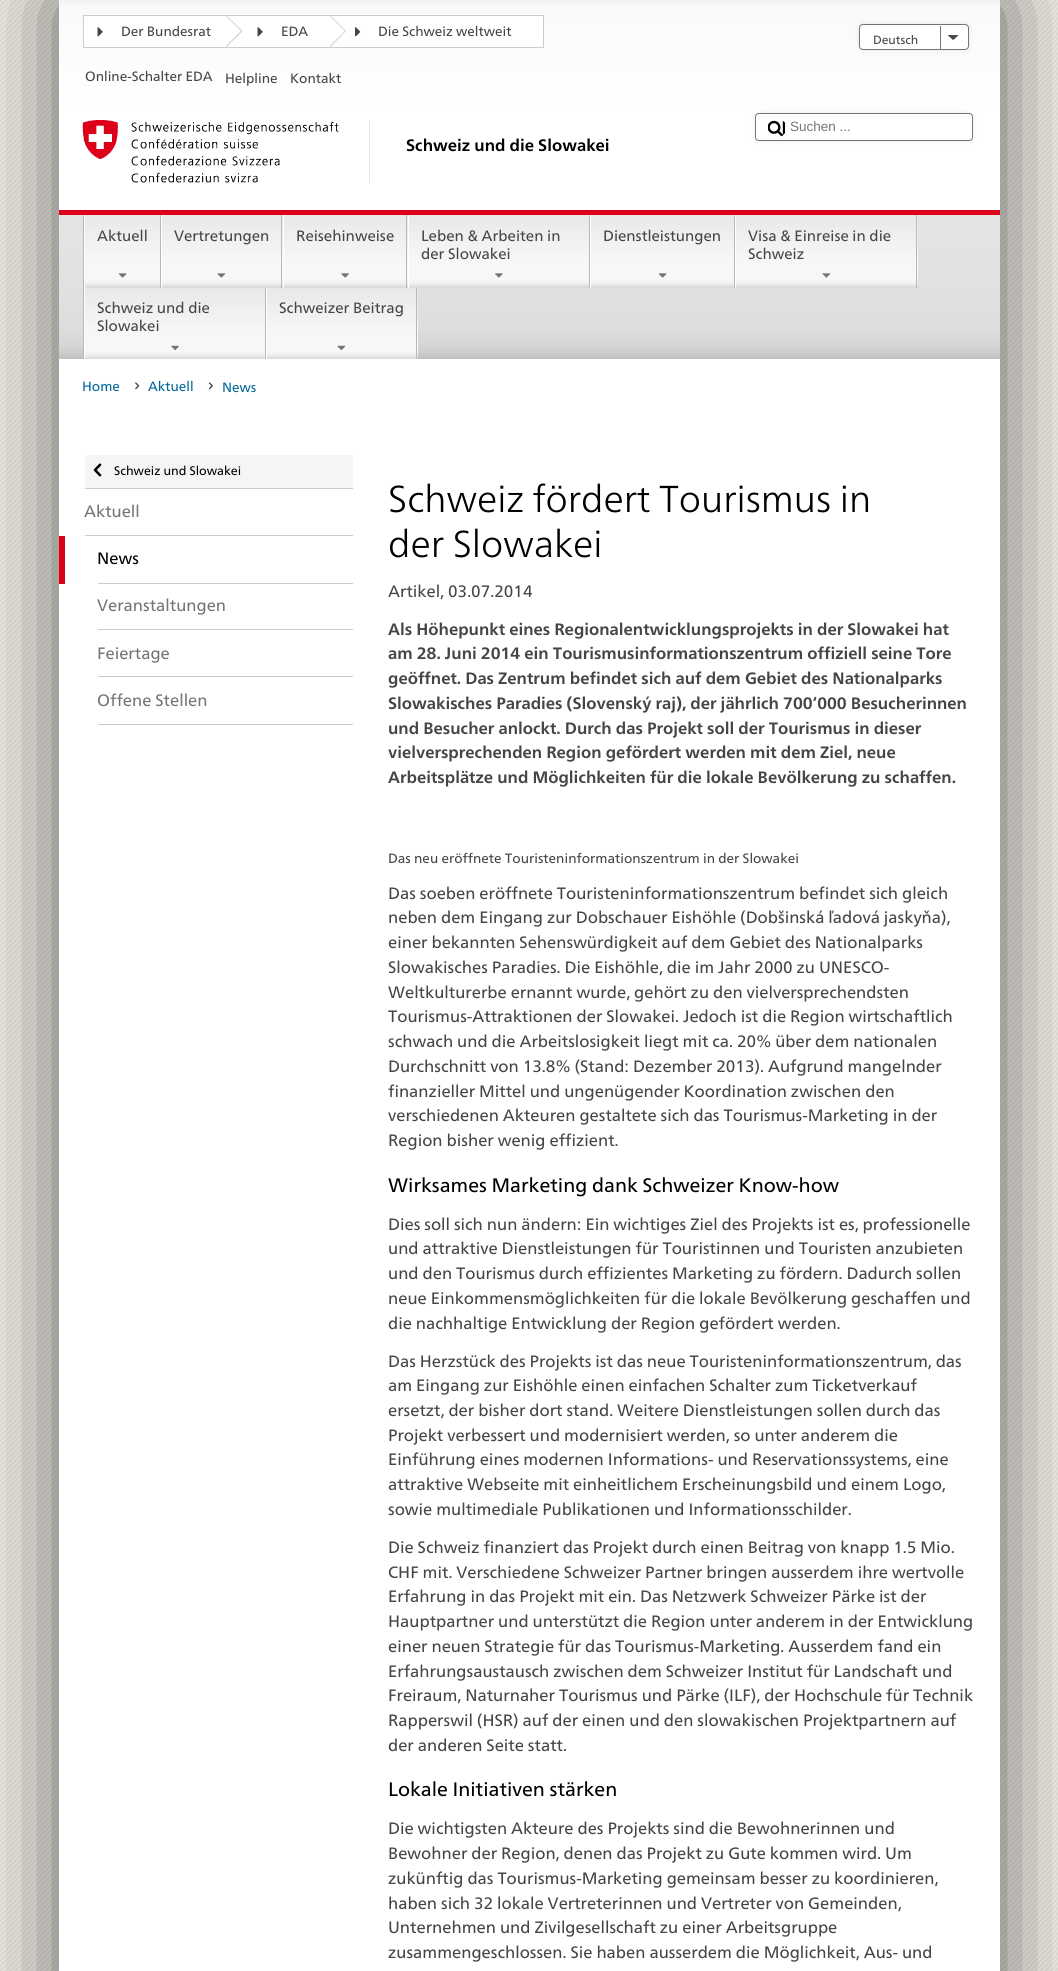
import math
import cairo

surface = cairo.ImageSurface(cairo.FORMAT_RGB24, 1058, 1971)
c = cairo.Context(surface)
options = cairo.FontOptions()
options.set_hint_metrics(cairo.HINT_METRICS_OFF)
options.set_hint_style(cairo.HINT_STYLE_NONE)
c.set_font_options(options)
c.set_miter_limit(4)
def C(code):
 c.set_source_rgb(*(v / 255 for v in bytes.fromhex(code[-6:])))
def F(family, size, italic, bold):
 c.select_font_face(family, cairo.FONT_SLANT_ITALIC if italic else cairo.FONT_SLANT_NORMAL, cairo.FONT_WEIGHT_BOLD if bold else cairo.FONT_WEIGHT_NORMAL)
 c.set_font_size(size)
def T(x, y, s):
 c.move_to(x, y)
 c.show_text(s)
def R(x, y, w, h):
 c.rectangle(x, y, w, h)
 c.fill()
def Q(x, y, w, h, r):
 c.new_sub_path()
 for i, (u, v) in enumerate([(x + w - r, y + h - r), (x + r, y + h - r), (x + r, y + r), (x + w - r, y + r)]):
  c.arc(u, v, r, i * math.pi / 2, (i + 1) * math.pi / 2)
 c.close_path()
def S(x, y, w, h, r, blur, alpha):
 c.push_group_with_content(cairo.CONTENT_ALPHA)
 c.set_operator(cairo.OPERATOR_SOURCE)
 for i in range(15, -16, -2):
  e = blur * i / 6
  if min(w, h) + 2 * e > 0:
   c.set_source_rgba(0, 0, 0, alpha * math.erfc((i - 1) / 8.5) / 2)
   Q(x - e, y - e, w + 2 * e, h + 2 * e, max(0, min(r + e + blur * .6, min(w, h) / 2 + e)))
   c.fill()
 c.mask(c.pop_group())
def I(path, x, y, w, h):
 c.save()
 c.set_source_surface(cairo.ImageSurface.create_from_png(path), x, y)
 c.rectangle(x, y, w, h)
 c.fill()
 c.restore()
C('ffffff')
c.paint()
I('1.png',0,0,1058,1971)
C('000000')
S(59,0,941,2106,0,45,.6)
C('ffffff')
R(59,120,941,1851)
gradient = cairo.LinearGradient(529,0,529,120)
gradient.add_color_stop_rgba(0,0.949,0.949,0.949,1)
gradient.add_color_stop_rgba(.07,0.98,0.98,0.98,1)
gradient.add_color_stop_rgba(1,1,1,1,1)
c.set_source(gradient)
R(59,0,941,120)
C('ffffff')
c.rectangle(83.5,15.5,460,32)
c.fill_preserve()
C('cccccc')
c.set_line_width(1)
c.stroke()
c.new_path()
c.move_to(226,47.5)
c.line_to(226,15)
c.line_to(242.5,31)
c.close_path()
c.fill()
I('2.png',97,27,6,10)
F('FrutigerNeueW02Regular',13.5,0,0)
C('454545')
T(121,36,'Der Bundesrat')
C('ffffff')
c.new_path()
c.move_to(226,46)
c.line_to(226,16)
c.line_to(241,31)
c.close_path()
c.fill()
C('cccccc')
c.new_path()
c.move_to(330,47.5)
c.line_to(330,15)
c.line_to(346,31)
c.close_path()
c.fill()
I('2.png',257,27,6,10)
C('454545')
T(281,36,'EDA')
C('ffffff')
c.new_path()
c.move_to(330,46)
c.line_to(330,16)
c.line_to(345,31)
c.close_path()
c.fill()
I('3.png',355,27,6,10)
C('454545')
T(378,36,'Die Schweiz weltweit')
C('000000')
S(859,24,110,26,4,2.5,.1)
C('ffffff')
Q(859.5,24.5,109,25,3.5)
c.fill_preserve()
C('757575')
c.stroke()
F('FrutigerNeueW02Regular',12,0,0)
C('454545')
T(873,44,'Deutsch')
I('4.png',947,35,12,5)
C('757575')
R(940,26,1,23)
F('FrutigerNeueW02Regular',13.5,0,0)
C('454545')
T(85,81,'Online-Schalter EDA')
T(225,83,'Helpline')
T(290,83,'Kontakt')
C('000000')
S(755,113,218,28,4,2.5,.1)
C('ffffff')
Q(755.5,113.5,217,27,3.5)
c.fill_preserve()
C('757575')
c.stroke()
I('5.png',768,120,17,17)
F('Liberation Sans',13.5,0,0)
T(790,131,'Suchen ...')
I('6.png',82,120,257,63)
C('e5e5e5')
R(369,120,1,63)
F('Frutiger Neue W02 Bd',16.5,0,1)
C('000000')
T(406,151,'Schweiz und die Slowakei')
gradient = cairo.LinearGradient(529,215,529,359)
gradient.add_color_stop_rgba(0,0.894,0.894,0.894,1)
gradient.add_color_stop_rgba(.39,0.886,0.886,0.886,1)
gradient.add_color_stop_rgba(.79,0.867,0.867,0.867,1)
gradient.add_color_stop_rgba(.91,0.835,0.835,0.835,1)
gradient.add_color_stop_rgba(.95,0.812,0.812,0.812,1)
gradient.add_color_stop_rgba(1,0.745,0.745,0.745,1)
c.set_source(gradient)
R(59,215,941,144)
C('dc0018')
R(59,210,941,5)
C('b8b8b8')
R(83,215,1,144)
gradient = cairo.LinearGradient(123,215,123,288)
gradient.add_color_stop_rgba(0,0.91,0.91,0.91,1)
gradient.add_color_stop_rgba(.61,0.969,0.969,0.969,1)
gradient.add_color_stop_rgba(.89,0.969,0.969,0.969,1)
gradient.add_color_stop_rgba(.91,0.961,0.961,0.961,1)
gradient.add_color_stop_rgba(.95,0.925,0.925,0.925,1)
gradient.add_color_stop_rgba(1,0.843,0.843,0.843,1)
c.set_source(gradient)
R(85,215,75,73)
C('b8b8b8')
R(160,215,1,73)
C('ffffff')
R(84,215,1,144)
F('FrutigerNeueW02Regular',15,0,0)
C('454545')
T(97,241,'Aktuell')
I('7.png',118,273,9,5)
gradient = cairo.LinearGradient(222,215,222,288)
gradient.add_color_stop_rgba(0,0.91,0.91,0.91,1)
gradient.add_color_stop_rgba(.61,0.969,0.969,0.969,1)
gradient.add_color_stop_rgba(.89,0.969,0.969,0.969,1)
gradient.add_color_stop_rgba(.91,0.961,0.961,0.961,1)
gradient.add_color_stop_rgba(.95,0.925,0.925,0.925,1)
gradient.add_color_stop_rgba(1,0.843,0.843,0.843,1)
c.set_source(gradient)
R(162,215,121,73)
C('b8b8b8')
R(281,215,1,73)
C('ffffff')
R(161,215,1,73)
C('454545')
T(174,241,'Vertretungen')
I('8.png',217,273,9,5)
gradient = cairo.LinearGradient(345,215,345,288)
gradient.add_color_stop_rgba(0,0.91,0.91,0.91,1)
gradient.add_color_stop_rgba(.61,0.969,0.969,0.969,1)
gradient.add_color_stop_rgba(.89,0.969,0.969,0.969,1)
gradient.add_color_stop_rgba(.91,0.961,0.961,0.961,1)
gradient.add_color_stop_rgba(.95,0.925,0.925,0.925,1)
gradient.add_color_stop_rgba(1,0.843,0.843,0.843,1)
c.set_source(gradient)
R(284,215,124,73)
C('b8b8b8')
R(406,215,1,73)
C('ffffff')
R(283,215,1,73)
C('454545')
T(296,241,'Reisehinweise')
I('9.png',341,273,8,5)
gradient = cairo.LinearGradient(499,215,499,288)
gradient.add_color_stop_rgba(0,0.91,0.91,0.91,1)
gradient.add_color_stop_rgba(.61,0.969,0.969,0.969,1)
gradient.add_color_stop_rgba(.89,0.969,0.969,0.969,1)
gradient.add_color_stop_rgba(.91,0.961,0.961,0.961,1)
gradient.add_color_stop_rgba(.95,0.925,0.925,0.925,1)
gradient.add_color_stop_rgba(1,0.843,0.843,0.843,1)
c.set_source(gradient)
R(409,215,180,73)
C('b8b8b8')
R(589,215,1,73)
C('ffffff')
R(408,215,1,73)
C('454545')
T(421,241,'Leben & Arbeiten in')
T(421,259,'der Slowakei')
I('10.png',495,273,8,5)
gradient = cairo.LinearGradient(663,215,663,288)
gradient.add_color_stop_rgba(0,0.91,0.91,0.91,1)
gradient.add_color_stop_rgba(.61,0.969,0.969,0.969,1)
gradient.add_color_stop_rgba(.89,0.969,0.969,0.969,1)
gradient.add_color_stop_rgba(.91,0.961,0.961,0.961,1)
gradient.add_color_stop_rgba(.95,0.925,0.925,0.925,1)
gradient.add_color_stop_rgba(1,0.843,0.843,0.843,1)
c.set_source(gradient)
R(591,215,143,73)
C('b8b8b8')
R(734,215,1,73)
C('ffffff')
R(590,215,1,73)
C('454545')
T(603,241,'Dienstleistungen')
I('7.png',658,273,9,5)
gradient = cairo.LinearGradient(826,215,826,288)
gradient.add_color_stop_rgba(0,0.91,0.91,0.91,1)
gradient.add_color_stop_rgba(.61,0.969,0.969,0.969,1)
gradient.add_color_stop_rgba(.89,0.969,0.969,0.969,1)
gradient.add_color_stop_rgba(.91,0.961,0.961,0.961,1)
gradient.add_color_stop_rgba(.95,0.925,0.925,0.925,1)
gradient.add_color_stop_rgba(1,0.843,0.843,0.843,1)
c.set_source(gradient)
R(736,215,182,73)
C('b8b8b8')
R(916,215,1,73)
C('ffffff')
R(735,215,1,73)
C('454545')
T(748,241,'Visa & Einreise in die')
T(748,259,'Schweiz')
I('8.png',822,273,9,5)
gradient = cairo.LinearGradient(175,288,175,359)
gradient.add_color_stop_rgba(0,0.91,0.91,0.91,1)
gradient.add_color_stop_rgba(.61,0.969,0.969,0.969,1)
gradient.add_color_stop_rgba(.89,0.969,0.969,0.969,1)
gradient.add_color_stop_rgba(.91,0.961,0.961,0.961,1)
gradient.add_color_stop_rgba(.95,0.925,0.925,0.925,1)
gradient.add_color_stop_rgba(1,0.843,0.843,0.843,1)
c.set_source(gradient)
R(85,288,180,71)
C('b8b8b8')
R(265,288,1,71)
C('454545')
T(97,313,'Schweiz und die')
T(97,331,'Slowakei')
I('11.png',171,345,8,6)
gradient = cairo.LinearGradient(342,288,342,359)
gradient.add_color_stop_rgba(0,0.91,0.91,0.91,1)
gradient.add_color_stop_rgba(.61,0.969,0.969,0.969,1)
gradient.add_color_stop_rgba(.89,0.969,0.969,0.969,1)
gradient.add_color_stop_rgba(.91,0.961,0.961,0.961,1)
gradient.add_color_stop_rgba(.95,0.925,0.925,0.925,1)
gradient.add_color_stop_rgba(1,0.843,0.843,0.843,1)
c.set_source(gradient)
R(267,288,151,71)
C('b8b8b8')
R(416,288,1,71)
C('ffffff')
R(266,288,1,71)
C('454545')
T(279,313,'Schweizer Beitrag')
I('12.png',337,345,9,6)
F('FrutigerNeueW02Regular',13.5,0,0)
C('006699')
T(82,391,'Home')
I('13.png',135,382,5,8)
T(148,391,'Aktuell')
I('14.png',208,382,5,8)
T(222,392,'News')
C('f5f5f5')
R(85,455,268,33)
C('cccccc')
R(85,488,268,1)
I('15.png',93,463,9,14)
F('FrutigerNeueW02Regular',12.4,0,0)
C('000000')
T(114,475,'Schweiz und Slowakei')
C('cccccc')
R(85,535,268,1)
F('FrutigerNeueW02Regular',16.5,0,0)
C('757575')
T(84,517,'Aktuell')
C('dc0018')
R(59,536,6,48)
C('cccccc')
R(98,583,255,1)
C('000000')
T(97,564,'News')
C('cccccc')
R(98,629,255,1)
C('757575')
T(97,611,'Veranstaltungen')
C('cccccc')
R(98,676,255,1)
C('757575')
T(97,659,'Feiertage')
C('cccccc')
R(98,724,255,1)
C('757575')
T(97,706,'Offene Stellen')
F('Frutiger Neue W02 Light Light',37.5,0,0)
C('000000')
T(388,512,'Schweiz fördert Tourismus in')
T(388,557,'der Slowakei')
F('FrutigerNeueW02Regular',16.5,0,0)
C('454545')
T(388,597,'Artikel, 03.07.2014')
F('Frutiger Neue W02 Bd',16.5,0,1)
T(388,635,'Als Höhepunkt eines Regionalentwicklungsprojekts in der Slowakei hat')
T(388,659,'am 28. Juni 2014 ein Tourismusinformationszentrum offiziell seine Tore')
T(388,684,'geöffnet. Das Zentrum befindet sich auf dem Gebiet des Nationalparks')
T(388,709,'Slowakisches Paradies (Slovenský raj), der jährlich 700‘000 Besucherinnen')
T(388,734,'und Besucher anlockt. Durch das Projekt soll der Tourismus in dieser')
T(388,758,'vielversprechenden Region gefördert werden mit dem Ziel, neue')
T(388,783,'Arbeitsplätze und Möglichkeiten für die lokale Bevölkerung zu schaffen.')
F('FrutigerNeueW02Regular',13.5,0,0)
T(388,863,'Das neu eröffnete Touristeninformationszentrum in der Slowakei')
F('FrutigerNeueW02Regular',16.5,0,0)
T(388,899,'Das soeben eröffnete Touristeninformationszentrum befindet sich gleich')
T(388,923,'neben dem Eingang zur Dobschauer Eishöhle (Dobšinská ľadová jaskyňa),')
T(388,948,'einer bekannten Sehenswürdigkeit auf dem Gebiet des Nationalparks')
T(388,973,'Slowakisches Paradies. Die Eishöhle, die im Jahr 2000 zu UNESCO-')
T(388,998,'Weltkulturerbe ernannt wurde, gehört zu den vielversprechendsten')
T(388,1022,'Tourismus-Attraktionen der Slowakei. Jedoch ist die Region wirtschaftlich')
T(388,1047,'schwach und die Arbeitslosigkeit liegt mit ca. 20% über dem nationalen')
T(388,1072,'Durchschnitt von 13.8% (Stand: Dezember 2013). Aufgrund mangelnder')
T(388,1097,'finanzieller Mittel und ungenügender Koordination zwischen den')
T(388,1121,'verschiedenen Akteuren gestaltete sich das Tourismus-Marketing in der')
T(388,1146,'Region bisher wenig effizient.')
F('FrutigerNeueW02Regular',19.5,0,0)
C('000000')
T(388,1192,'Wirksames Marketing dank Schweizer Know-how')
F('FrutigerNeueW02Regular',16.5,0,0)
C('454545')
T(388,1230,'Dies soll sich nun ändern: Ein wichtiges Ziel des Projekts ist es, professionelle')
T(388,1254,'und attraktive Dienstleistungen für Touristinnen und Touristen anzubieten')
T(388,1279,'und den Tourismus durch effizientes Marketing zu fördern. Dadurch sollen')
T(388,1304,'neue Einkommensmöglichkeiten für die lokale Bevölkerung geschaffen und')
T(388,1329,'die nachhaltige Entwicklung der Region gefördert werden.')
T(388,1367,'Das Herzstück des Projekts ist das neue Touristeninformationszentrum, das')
T(388,1391,'am Eingang zur Eishöhle einen einfachen Schalter zum Ticketverkauf')
T(388,1416,'ersetzt, der bisher dort stand. Weitere Dienstleistungen sollen durch das')
T(388,1441,'Projekt verbessert und modernisiert werden, so unter anderem die')
T(388,1465,'Einführung eines modernen Informations- und Reservationssystems, eine')
T(388,1490,'attraktive Webseite mit einheitlichem Erscheinungsbild und einem Logo,')
T(388,1515,'sowie multimediale Publikationen und Informationsschilder.')
T(388,1553,'Die Schweiz finanziert das Projekt durch einen Beitrag von knapp 1.5 Mio.')
T(388,1578,'CHF mit. Verschiedene Schweizer Partner bringen ausserdem ihre wertvolle')
T(388,1602,'Erfahrung in das Projekt mit ein. Das Netzwerk Schweizer Pärke ist der')
T(388,1627,'Hauptpartner und unterstützt die Region unter anderem in der Entwicklung')
T(388,1652,'einer neuen Strategie für das Tourismus-Marketing. Ausserdem fand ein')
T(388,1677,'Erfahrungsaustausch zwischen dem Schweizer Institut für Landschaft und')
T(388,1701,'Freiraum, Naturnaher Tourismus und Pärke (ILF), der Hochschule für Technik')
T(388,1726,'Rapperswil (HSR) auf der einen und den slowakischen Projektpartnern auf')
T(388,1751,'der anderen Seite statt.')
F('FrutigerNeueW02Regular',19.5,0,0)
C('000000')
T(388,1796,'Lokale Initiativen stärken')
F('FrutigerNeueW02Regular',16.5,0,0)
C('454545')
T(388,1834,'Die wichtigsten Akteure des Projekts sind die Bewohnerinnen und')
T(388,1859,'Bewohner der Region, denen das Projekt zu Gute kommen wird. Um')
T(388,1884,'zukünftig das Tourismus-Marketing gemeinsam besser zu koordinieren,')
T(388,1909,'haben sich 32 lokale Vertreterinnen und Vertreter von Gemeinden,')
T(388,1933,'Unternehmen und Zivilgesellschaft zu einer Arbeitsgruppe')
T(388,1958,'zusammengeschlossen. Sie haben ausserdem die Möglichkeit, Aus- und')
surface.write_to_png('o.png')
